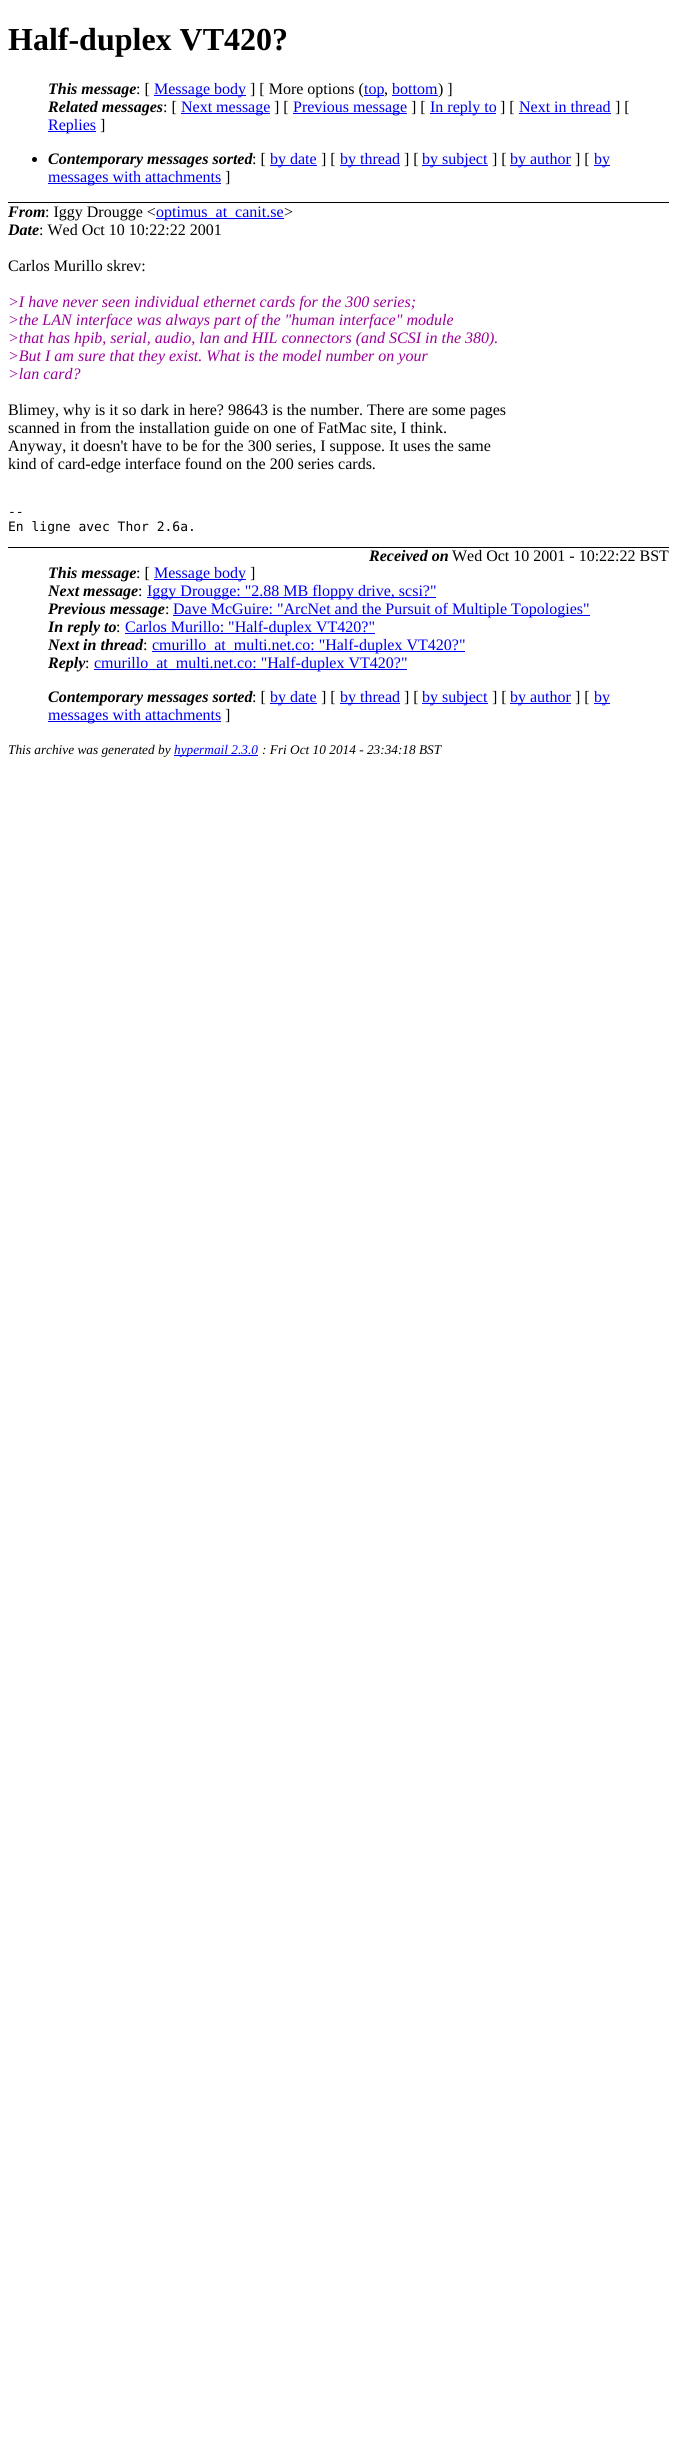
import math
import cairo

surface = cairo.ImageSurface(cairo.FORMAT_RGB24, 677, 2455)
c = cairo.Context(surface)
options = cairo.FontOptions()
options.set_hint_metrics(cairo.HINT_METRICS_OFF)
options.set_hint_style(cairo.HINT_STYLE_NONE)
c.set_font_options(options)
c.set_miter_limit(4)
def C(code):
 c.set_source_rgb(*(v / 255 for v in bytes.fromhex(code[-6:])))
def F(family, size, italic, bold):
 c.select_font_face(family, cairo.FONT_SLANT_ITALIC if italic else cairo.FONT_SLANT_NORMAL, cairo.FONT_WEIGHT_BOLD if bold else cairo.FONT_WEIGHT_NORMAL)
 c.set_font_size(size)
def T(x, y, s):
 c.move_to(x, y)
 c.show_text(s)
def R(x, y, w, h):
 c.rectangle(x, y, w, h)
 c.fill()
C('ffffff')
c.paint()
C('000000')
R(8,202,661,1)
F('Liberation Serif',32,0,1)
T(8,50,'Half-duplex VT420?')
F('Liberation Serif',16,1,1)
T(48,94,'This message')
F('Liberation Serif',16,0,0)
T(136,94,': [')
C('0000ee')
R(154,95,92,1)
T(154,94,'Message body')
C('000000')
T(250,94,'] [ More options (')
C('0000ee')
R(364,95,20,1)
T(364,94,'top')
C('000000')
T(384,94,',')
C('0000ee')
T(392,94,'bottom')
R(392,95,46,1)
C('000000')
T(438,94,') ]')
F('Liberation Serif',16,1,1)
T(48,112,'Related messages')
F('Liberation Serif',16,0,0)
T(163,112,': [')
C('0000ee')
R(181,113,89,1)
T(181,112,'Next message')
C('000000')
T(274,112,'] [')
C('0000ee')
R(293,113,114,1)
T(293,112,'Previous message')
C('000000')
T(411,112,'] [')
C('0000ee')
R(430,113,66,1)
T(430,112,'In reply to')
C('000000')
T(500,112,'] [')
C('0000ee')
T(519,112,'Next in thread')
R(519,113,92,1)
C('000000')
T(615,112,'] [')
C('0000ee')
R(48,131,48,1)
T(48,130,'Replies')
C('000000')
T(100,130,']')
c.new_path()
c.arc(34.5,159.5,2.5,0,2 * math.pi)
c.fill()
F('Liberation Serif',16,1,1)
T(48,164,'Contemporary messages sorted')
F('Liberation Serif',16,0,0)
T(252,164,': [')
C('0000ee')
R(270,165,47,1)
T(270,164,'by date')
C('000000')
T(321,164,'] [')
C('0000ee')
R(340,165,60,1)
T(340,164,'by thread')
C('000000')
T(404,164,'] [')
C('0000ee')
R(422,165,66,1)
T(422,164,'by subject')
C('000000')
T(492,164,'] [')
C('0000ee')
R(510,165,61,1)
T(510,164,'by author')
C('000000')
T(575,164,'] [')
C('0000ee')
R(594,165,16,1)
T(594,164,'by')
R(48,183,173,1)
T(48,182,'messages with attachments')
C('000000')
T(225,182,']')
F('Liberation Serif',16,1,1)
T(8,217,'From')
F('Liberation Serif',16,0,0)
T(45,217,': Iggy Drougge <')
C('0000ee')
R(156,218,128,1)
T(156,217,'optimus_at_canit.se')
C('000000')
T(284,217,'>')
F('Liberation Serif',16,1,1)
T(8,235,'Date')
F('Liberation Serif',16,0,0)
T(39,235,': Wed Oct 10 10:22:22 2001')
T(8,271,'Carlos Murillo skrev:')
F('Liberation Serif',16,1,0)
C('990099')
T(8,307,'>I have never seen individual ethernet cards for the 300 series;')
T(8,325,'>the LAN interface was always part of the "human interface" module')
T(8,343,'>that has hpib, serial, audio, lan and HIL connectors (and SCSI in the 380).')
T(8,361,'>But I am sure that they exist. What is the model number on your')
T(8,379,'>lan card?')
F('Liberation Serif',16,0,0)
C('000000')
T(8,415,'Blimey, why is it so dark in here? 98643 is the number. There are some pages')
T(8,433,'scanned in from the installation guide on one of FatMac site, I think.')
T(8,451,'Anyway, it doesn\'t have to be for the 300 series, I suppose. It uses the same')
T(8,469,'kind of card-edge interface found on the 200 series cards.')
F('DejaVu Sans Mono',13,0,0)
T(8,516,'--')
T(8,531,'En ligne avec Thor 2.6a.')
F('Liberation Serif',16,1,1)
T(369,561,'Received on')
F('Liberation Serif',16,0,0)
T(452,561,'Wed Oct 10 2001 - 10:22:22 BST')
R(8,547,661,1)
F('Liberation Serif',16,1,1)
T(48,578,'This message')
F('Liberation Serif',16,0,0)
T(136,578,': [')
C('0000ee')
R(154,579,92,1)
T(154,578,'Message body')
C('000000')
T(250,578,']')
F('Liberation Serif',16,1,1)
T(48,596,'Next message')
F('Liberation Serif',16,0,0)
T(138,596,':')
C('0000ee')
R(147,597,289,1)
T(147,596,'Iggy Drougge: "2.88 MB floppy drive, scsi?"')
F('Liberation Serif',16,1,1)
C('000000')
T(48,614,'Previous message')
F('Liberation Serif',16,0,0)
T(165,614,':')
C('0000ee')
R(173,615,417,1)
T(173,614,'Dave McGuire: "ArcNet and the Pursuit of Multiple Topologies"')
F('Liberation Serif',16,1,1)
C('000000')
T(48,632,'In reply to')
F('Liberation Serif',16,0,0)
T(116,632,':')
C('0000ee')
R(125,633,250,1)
T(125,632,'Carlos Murillo: "Half-duplex VT420?"')
F('Liberation Serif',16,1,1)
C('000000')
T(48,650,'Next in thread')
F('Liberation Serif',16,0,0)
T(143,650,':')
C('0000ee')
R(152,651,313,1)
T(152,650,'cmurillo_at_multi.net.co: "Half-duplex VT420?"')
F('Liberation Serif',16,1,1)
C('000000')
T(48,668,'Reply')
F('Liberation Serif',16,0,0)
T(85,668,':')
C('0000ee')
R(94,669,313,1)
T(94,668,'cmurillo_at_multi.net.co: "Half-duplex VT420?"')
F('Liberation Serif',16,1,1)
C('000000')
T(48,702,'Contemporary messages sorted')
F('Liberation Serif',16,0,0)
T(252,702,': [')
C('0000ee')
R(270,703,47,1)
T(270,702,'by date')
C('000000')
T(321,702,'] [')
C('0000ee')
R(340,703,60,1)
T(340,702,'by thread')
C('000000')
T(404,702,'] [')
C('0000ee')
R(422,703,66,1)
T(422,702,'by subject')
C('000000')
T(492,702,'] [')
C('0000ee')
R(510,703,61,1)
T(510,702,'by author')
C('000000')
T(575,702,'] [')
C('0000ee')
R(594,703,16,1)
T(594,702,'by')
R(48,721,173,1)
T(48,720,'messages with attachments')
C('000000')
T(225,720,']')
F('Liberation Serif',13.3,1,0)
T(8,754,'This archive was generated by')
C('0000ee')
R(174,755,84,1)
T(174,754,'hypermail 2.3.0')
C('000000')
T(262,754,': Fri Oct 10 2014 - 23:34:18 BST')
surface.write_to_png('o.png')
